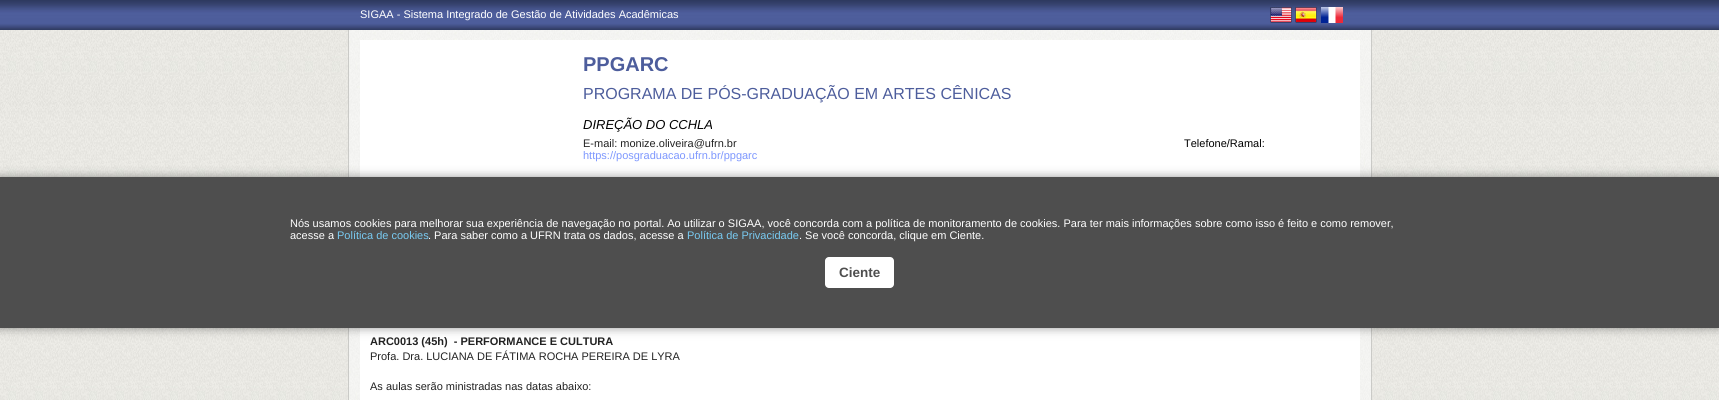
import math
import cairo

surface = cairo.ImageSurface(cairo.FORMAT_RGB24, 1719, 400)
c = cairo.Context(surface)
options = cairo.FontOptions()
options.set_hint_metrics(cairo.HINT_METRICS_OFF)
options.set_hint_style(cairo.HINT_STYLE_NONE)
c.set_font_options(options)
c.set_miter_limit(4)
def C(code):
 c.set_source_rgb(*(v / 255 for v in bytes.fromhex(code[-6:])))
def F(family, size, italic, bold):
 c.select_font_face(family, cairo.FONT_SLANT_ITALIC if italic else cairo.FONT_SLANT_NORMAL, cairo.FONT_WEIGHT_BOLD if bold else cairo.FONT_WEIGHT_NORMAL)
 c.set_font_size(size)
def T(x, y, s):
 c.move_to(x, y)
 c.show_text(s)
def R(x, y, w, h):
 c.rectangle(x, y, w, h)
 c.fill()
def Q(x, y, w, h, r):
 c.new_sub_path()
 for i, (u, v) in enumerate([(x + w - r, y + h - r), (x + r, y + h - r), (x + r, y + r), (x + w - r, y + r)]):
  c.arc(u, v, r, i * math.pi / 2, (i + 1) * math.pi / 2)
 c.close_path()
def S(x, y, w, h, r, blur, alpha):
 c.push_group_with_content(cairo.CONTENT_ALPHA)
 c.set_operator(cairo.OPERATOR_SOURCE)
 for i in range(15, -16, -2):
  e = blur * i / 6
  if min(w, h) + 2 * e > 0:
   c.set_source_rgba(0, 0, 0, alpha * math.erfc((i - 1) / 8.5) / 2)
   Q(x - e, y - e, w + 2 * e, h + 2 * e, max(0, min(r + e + blur * .6, min(w, h) / 2 + e)))
   c.fill()
 c.mask(c.pop_group())
def I(path, x, y, w, h):
 c.save()
 c.set_source_surface(cairo.ImageSurface.create_from_png(path), x, y)
 c.rectangle(x, y, w, h)
 c.fill()
 c.restore()
C('ffffff')
c.paint()
I('1.png',0,30,1719,370)
I('2.png',0,0,1719,30)
F('Liberation Sans',11,0,0)
C('ffffff')
T(360,18,'SIGAA - Sistema Integrado de Gestão de Atividades Acadêmicas')
I('3.png',1270,7,22,16)
I('4.png',1295,7,22,16)
I('5.png',1321,7,22,16)
I('6.png',349,30,1022,370)
C('cacac7')
R(1371,30,1,370)
R(348,30,1,370)
C('ffffff')
R(360,40,1000,360)
F('Liberation Sans',20,0,1)
C('4d5d9c')
T(583,71,'PPGARC')
F('Liberation Sans',16,0,0)
T(583,99,'PROGRAMA DE PÓS-GRADUAÇÃO EM ARTES CÊNICAS')
F('Liberation Sans',13,1,0)
C('000000')
T(583,129,'DIREÇÃO DO CCHLA')
F('Liberation Sans',11,0,0)
C('222222')
T(583,147,'E-mail: monize.oliveira@ufrn.br')
C('000000')
T(1184,147,'Telefone/Ramal:')
C('7d97fe')
T(583,159,'https://posgraduacao.ufrn.br/ppgarc')
F('Liberation Sans',11,0,1)
C('222222')
T(370,345,'ARC0013 (45h)  - PERFORMANCE E CULTURA')
F('Liberation Sans',11,0,0)
T(370,360,'Profa. Dra. LUCIANA DE FÁTIMA ROCHA PEREIRA DE LYRA')
T(370,390,'As aulas serão ministradas nas datas abaixo:')
C('000000')
S(0,177,1719,151,0,5,.4)
C('4e4e4e')
R(0,177,1719,151)
C('ffffff')
T(290,227,'Nós usamos cookies para melhorar sua experiência de navegação no portal. Ao utilizar o SIGAA, você concorda com a política de monitoramento de cookies. Para ter mais informações sobre como isso é feito e como remover,')
T(290,239,'acesse a')
C('79cbf2')
T(337,239,'Política de cookies')
C('ffffff')
T(428,239,'. Para saber como a UFRN trata os dados, acesse a')
C('79cbf2')
T(687,239,'Política de Privacidade')
C('ffffff')
T(799,239,'. Se você concorda, clique em Ciente.')
Q(825,257,69,31,4)
c.fill()
F('Liberation Sans',13.5,0,1)
C('4e4e4e')
T(839,277,'Ciente')
surface.write_to_png('o.png')
